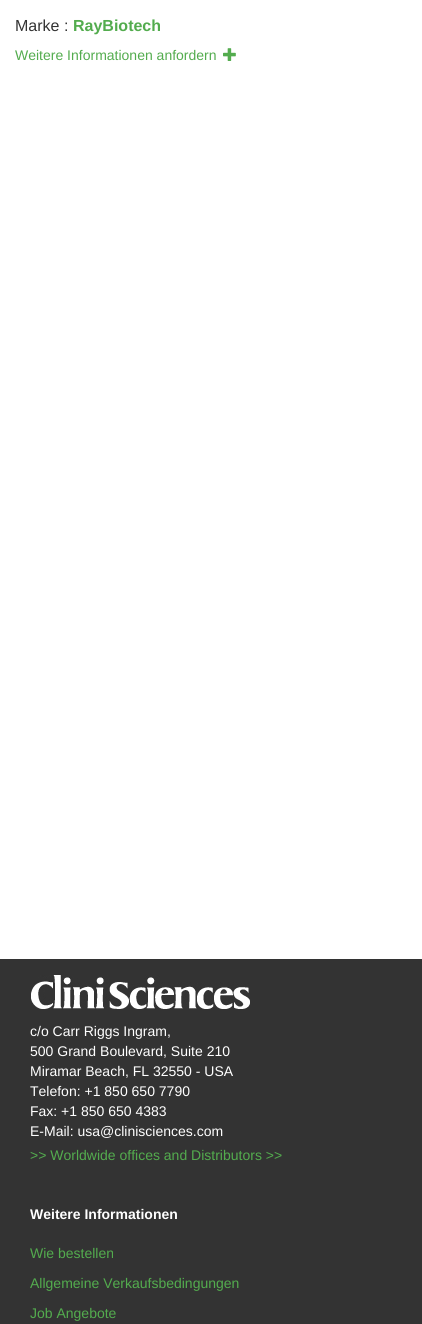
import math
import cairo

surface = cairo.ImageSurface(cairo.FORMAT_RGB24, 422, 1324)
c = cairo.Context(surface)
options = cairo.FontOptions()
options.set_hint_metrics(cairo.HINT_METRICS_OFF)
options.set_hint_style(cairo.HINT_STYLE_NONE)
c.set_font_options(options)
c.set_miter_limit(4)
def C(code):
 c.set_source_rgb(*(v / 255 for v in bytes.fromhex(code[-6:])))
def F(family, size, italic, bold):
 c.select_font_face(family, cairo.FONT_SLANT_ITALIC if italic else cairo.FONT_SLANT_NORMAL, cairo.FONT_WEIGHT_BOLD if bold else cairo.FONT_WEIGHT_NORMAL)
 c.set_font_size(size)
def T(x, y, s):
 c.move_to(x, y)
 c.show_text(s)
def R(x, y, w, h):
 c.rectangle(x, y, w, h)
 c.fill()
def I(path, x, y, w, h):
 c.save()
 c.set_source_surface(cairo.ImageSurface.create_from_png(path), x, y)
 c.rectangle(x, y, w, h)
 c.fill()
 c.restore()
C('ffffff')
c.paint()
F('Liberation Sans',16,0,0)
C('333333')
T(15,31,'Marke :')
F('Liberation Sans',16,0,1)
C('53ac4e')
T(73,31,'RayBiotech')
F('Liberation Sans',14,0,0)
T(15,60,'Weitere Informationen anfordern')
I('1.png',223,48,13,13)
C('333333')
R(0,959,422,365)
I('2.png',31,975,219,34)
C('ffffff')
T(30,1036,'c/o Carr Riggs Ingram,')
T(30,1056,'500 Grand Boulevard, Suite 210')
T(30,1076,'Miramar Beach, FL 32550 - USA')
T(30,1096,'Telefon: +1 850 650 7790')
T(30,1116,'Fax: +1 850 650 4383')
T(30,1136,'E-Mail: usa@clinisciences.com')
C('53ac4e')
T(30,1160,'>> Worldwide offices and Distributors >>')
F('Liberation Sans',14,0,1)
C('ffffff')
T(30,1219,'Weitere Informationen')
F('Liberation Sans',14,0,0)
C('53ac4e')
T(30,1258,'Wie bestellen')
T(30,1288,'Allgemeine Verkaufsbedingungen')
T(30,1318,'Job Angebote')
surface.write_to_png('o.png')
